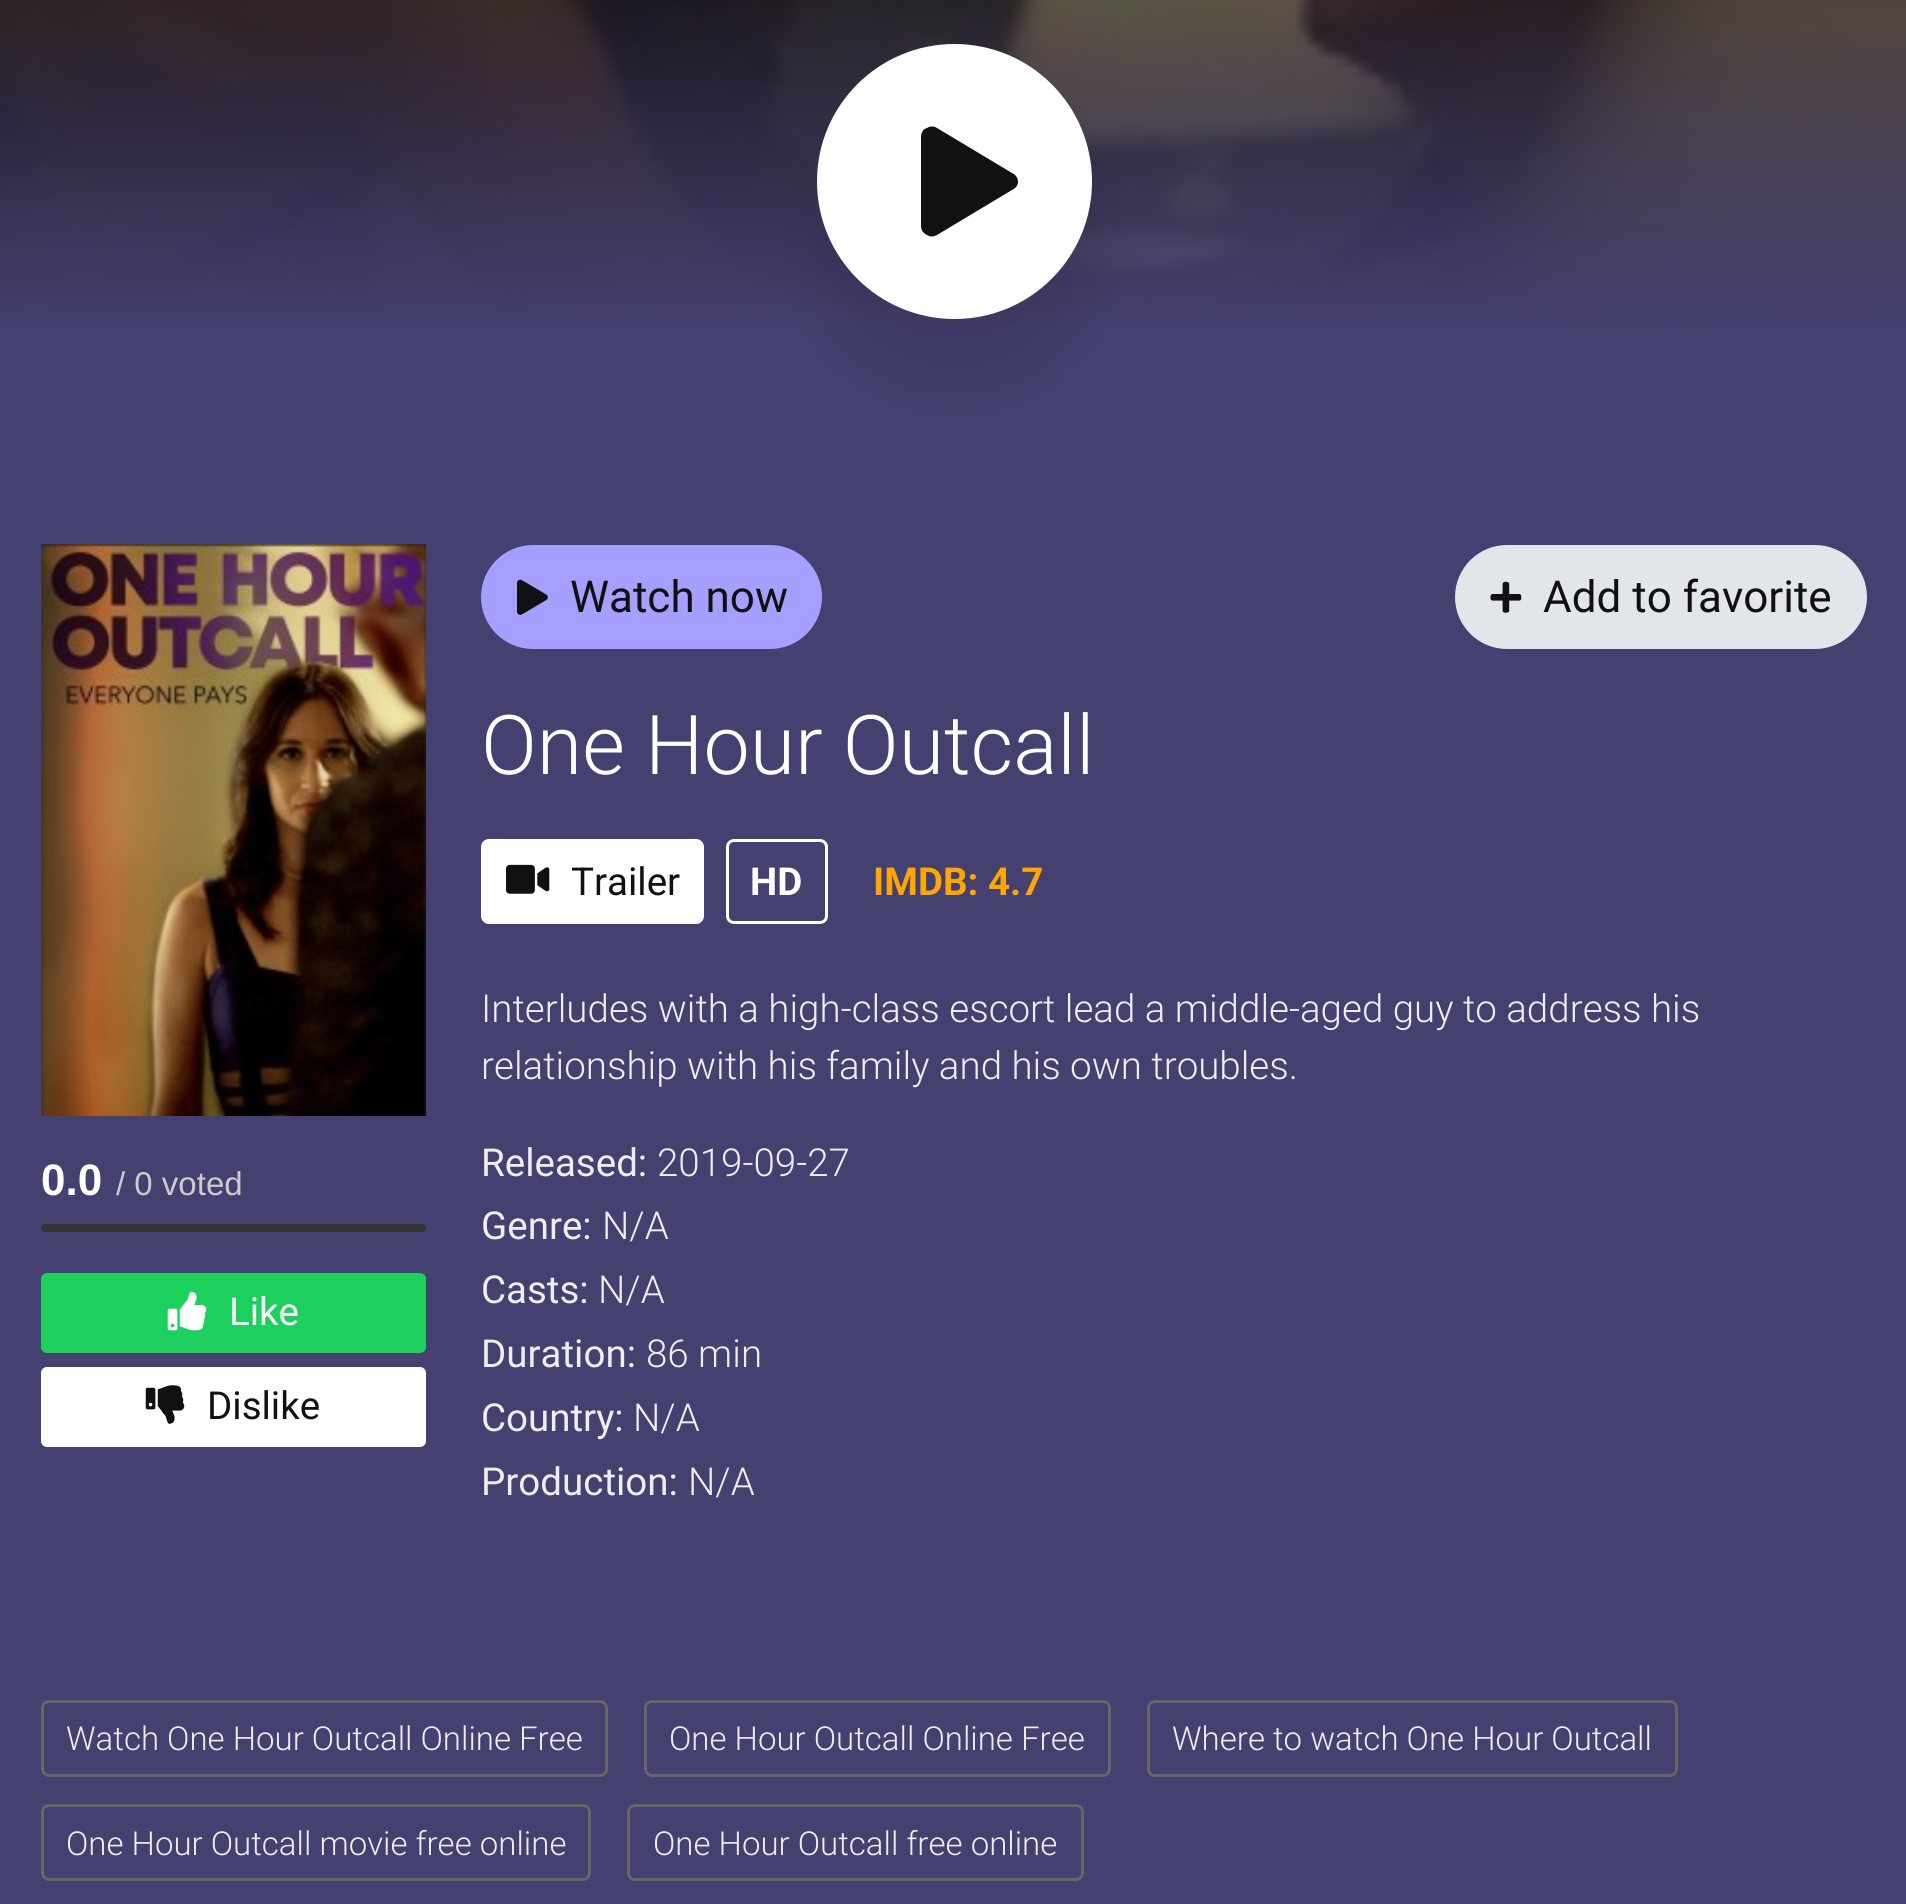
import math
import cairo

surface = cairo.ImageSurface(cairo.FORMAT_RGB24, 1906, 1904)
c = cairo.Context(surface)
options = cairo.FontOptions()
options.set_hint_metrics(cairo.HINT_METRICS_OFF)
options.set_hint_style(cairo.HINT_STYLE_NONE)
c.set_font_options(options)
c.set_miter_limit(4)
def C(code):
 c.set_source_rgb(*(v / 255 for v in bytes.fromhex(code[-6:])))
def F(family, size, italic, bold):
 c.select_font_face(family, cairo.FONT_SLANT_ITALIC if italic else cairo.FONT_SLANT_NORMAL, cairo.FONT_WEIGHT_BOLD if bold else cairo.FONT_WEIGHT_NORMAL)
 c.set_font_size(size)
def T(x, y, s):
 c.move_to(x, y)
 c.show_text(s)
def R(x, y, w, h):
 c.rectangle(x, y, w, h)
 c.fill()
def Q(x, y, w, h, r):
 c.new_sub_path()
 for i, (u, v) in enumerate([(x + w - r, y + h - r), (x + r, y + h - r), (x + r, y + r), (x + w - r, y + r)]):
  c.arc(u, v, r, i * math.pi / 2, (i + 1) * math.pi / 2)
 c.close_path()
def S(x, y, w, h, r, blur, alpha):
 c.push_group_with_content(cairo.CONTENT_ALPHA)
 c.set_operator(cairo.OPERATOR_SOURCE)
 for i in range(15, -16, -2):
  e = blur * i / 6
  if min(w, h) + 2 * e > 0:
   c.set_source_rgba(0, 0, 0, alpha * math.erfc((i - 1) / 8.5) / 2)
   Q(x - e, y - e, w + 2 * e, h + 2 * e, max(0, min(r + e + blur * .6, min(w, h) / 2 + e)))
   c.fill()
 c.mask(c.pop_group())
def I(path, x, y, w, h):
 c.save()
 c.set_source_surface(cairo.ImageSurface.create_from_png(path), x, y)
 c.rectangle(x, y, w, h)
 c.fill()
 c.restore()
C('44406f')
c.paint()
I('1.png',0,0,1906,325)
gradient = cairo.LinearGradient(954,-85,954,327)
gradient.add_color_stop_rgba(0,0.267,0.251,0.435,0)
gradient.add_color_stop_rgba(1,0.267,0.251,0.435,1)
c.set_source(gradient)
R(0,0,1906,325)
C('000000')
S(817,99,275,275,137.5,27.5,.1)
C('ffffff')
c.arc(954.5,181.5,137.5,0,2 * math.pi)
c.fill()
C('111111')
c.new_path()
c.move_to(1012,173)
c.curve_to(1016,175,1018,178,1018,182)
c.curve_to(1018,185,1016,188,1012,190)
c.line_to(937,235)
c.curve_to(933,237,930,237,927,235)
c.curve_to(923,233,921,230,921,226)
c.line_to(921,137)
c.curve_to(921,133,923,129,927,128)
c.curve_to(930,126,934,126,937,128)
c.close_path()
c.fill()
I('2.png',41,544,386,572)
F('Liberation Sans',44,0,1)
C('ffffff')
T(41,1195,'0.0')
F('Liberation Sans',33,0,0)
C('cccccc')
T(116,1195,'/ 0 voted')
C('333333')
Q(41,1224,385,8,4)
c.fill()
C('1dd05d')
Q(41,1273,385,80,6)
c.fill()
I('3.png',167,1291,40,40)
F('Roboto',38.5,0,0)
C('ffffff')
T(229,1325,'Like')
Q(41,1367,385,80,6)
c.fill()
I('4.png',145,1385,40,39)
C('111111')
T(207,1419,'Dislike')
C('a79fff')
Q(482.5,546.5,338,101,50.5)
c.fill_preserve()
c.set_line_width(3)
c.stroke()
I('5.png',517,579,31,36)
F('Roboto',44,0,0)
C('111111')
T(570,612,'Watch now')
C('e2e6ea')
Q(1456.5,546.5,409,101,50.5)
c.fill_preserve()
c.stroke()
I('6.png',1490,581,32,32)
C('111111')
T(1543,612,'Add to favorite')
F('Roboto Light',82.5,0,0)
C('ffffff')
T(481,774,'One Hour Outcall')
Q(481,839,223,85,8)
c.fill()
I('7.png',506,864,44,30)
F('Roboto',38.5,0,0)
C('111111')
T(571,895,'Trailer')
Q(727.5,840.5,99,82,6.5)
C('ffffff')
c.stroke()
F('Roboto',38.5,0,1)
T(750,895,'HD')
C('ffa600')
T(873,895,'IMDB: 4.7')
F('Roboto Light',38.5,0,0)
C('eeeeee')
T(481,1022,'Interludes with a high-class escort lead a middle-aged guy to address his')
T(481,1079,'relationship with his family and his own troubles.')
F('Roboto',38.5,0,0)
T(481,1176,'Released:')
F('Roboto Light',38.5,0,0)
T(657,1176,'2019-09-27')
F('Roboto',38.5,0,0)
T(481,1239,'Genre:')
F('Roboto Light',38.5,0,0)
T(602,1239,'N/A')
F('Roboto',38.5,0,0)
T(481,1303,'Casts:')
F('Roboto Light',38.5,0,0)
T(598,1303,'N/A')
F('Roboto',38.5,0,0)
T(481,1367,'Duration:')
F('Roboto Light',38.5,0,0)
T(646,1367,'86 min')
F('Roboto',38.5,0,0)
T(481,1431,'Country:')
F('Roboto Light',38.5,0,0)
T(633,1431,'N/A')
F('Roboto',38.5,0,0)
T(481,1495,'Production:')
F('Roboto Light',38.5,0,0)
T(688,1495,'N/A')
Q(42.5,1701.5,564,74,6.5)
C('666666')
c.stroke()
F('Roboto Light',33,0,0)
C('eeeeee')
T(66,1750,'Watch One Hour Outcall Online Free')
Q(645.5,1701.5,464,74,6.5)
C('666666')
c.stroke()
C('eeeeee')
T(669,1750,'One Hour Outcall Online Free')
Q(1148.5,1701.5,528,74,6.5)
C('666666')
c.stroke()
C('eeeeee')
T(1172,1750,'Where to watch One Hour Outcall')
Q(42.5,1805.5,547,74,6.5)
C('666666')
c.stroke()
C('eeeeee')
T(66,1855,'One Hour Outcall movie free online')
Q(628.5,1805.5,454,74,6.5)
C('666666')
c.stroke()
C('eeeeee')
T(653,1855,'One Hour Outcall free online')
surface.write_to_png('o.png')
